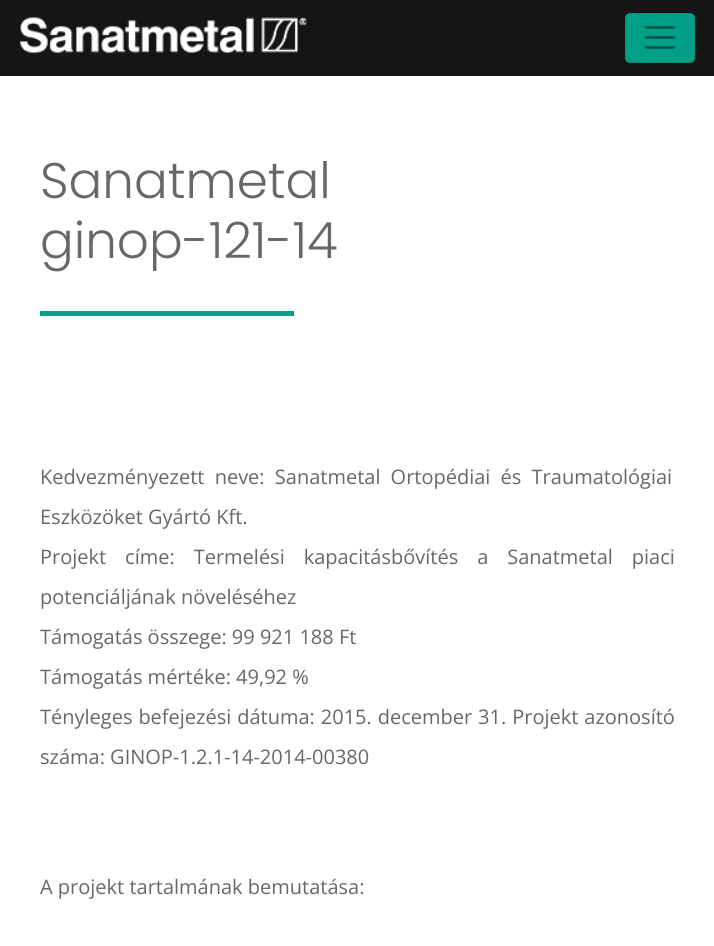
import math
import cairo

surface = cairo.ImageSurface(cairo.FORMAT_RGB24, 714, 946)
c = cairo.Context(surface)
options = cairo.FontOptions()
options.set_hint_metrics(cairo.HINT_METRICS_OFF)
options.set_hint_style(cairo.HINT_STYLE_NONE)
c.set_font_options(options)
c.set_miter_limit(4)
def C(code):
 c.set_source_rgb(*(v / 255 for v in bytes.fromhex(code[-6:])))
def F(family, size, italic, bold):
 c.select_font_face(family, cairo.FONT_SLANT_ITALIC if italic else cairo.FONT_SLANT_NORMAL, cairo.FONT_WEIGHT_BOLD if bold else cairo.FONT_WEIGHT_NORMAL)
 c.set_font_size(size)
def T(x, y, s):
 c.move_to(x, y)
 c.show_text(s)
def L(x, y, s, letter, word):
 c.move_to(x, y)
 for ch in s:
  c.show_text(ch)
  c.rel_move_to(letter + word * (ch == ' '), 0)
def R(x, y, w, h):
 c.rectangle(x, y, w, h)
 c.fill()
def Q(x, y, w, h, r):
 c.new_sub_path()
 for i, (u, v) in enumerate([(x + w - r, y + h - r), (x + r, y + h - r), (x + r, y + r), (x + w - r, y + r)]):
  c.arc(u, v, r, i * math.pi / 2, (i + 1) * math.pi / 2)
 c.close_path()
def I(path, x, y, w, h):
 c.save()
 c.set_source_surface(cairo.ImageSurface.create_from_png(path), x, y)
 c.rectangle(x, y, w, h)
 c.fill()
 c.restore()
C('ffffff')
c.paint()
C('151515')
R(0,0,714,76)
I('1.png',20,17,287,37)
C('009f88')
Q(625,13,70,50,5)
c.fill()
Q(625.5,13.5,69,49,4.5)
c.set_source_rgba(0,0,0,0.1)
c.set_line_width(1)
c.stroke()
c.new_path()
c.move_to(646,27.5)
c.line_to(674,27.5)
c.move_to(646,37.5)
c.line_to(674,37.5)
c.move_to(646,47.5)
c.line_to(674,47.5)
C('005044')
c.set_line_width(2.5)
c.set_line_cap(cairo.LINE_CAP_ROUND)
c.stroke()
F('Poppins Light',50,0,0)
C('676767')
T(40,198,'Sanatmetal')
T(40,258,'ginop-121-14')
C('009f88')
R(40,311,254,5)
F('Open Sans',20,0,0)
C('676767')
L(40,484,'Kedvezményezett neve: Sanatmetal Ortopédiai és Traumatológiai',0,5)
T(40,524,'Eszközöket Gyártó Kft.')
L(40,564,'Projekt címe: Termelési kapacitásbővítés a Sanatmetal piaci',0,13.75)
T(40,604,'potenciáljának növeléséhez')
T(40,644,'Támogatás összege: 99 921 188 Ft')
T(40,684,'Támogatás mértéke: 49,92 %')
L(40,724,'Tényleges befejezési dátuma: 2015. december 31. Projekt azonosító',0,.75)
T(40,764,'száma: GINOP-1.2.1-14-2014-00380')
T(40,894,'A projekt tartalmának bemutatása:')
surface.write_to_png('o.png')
